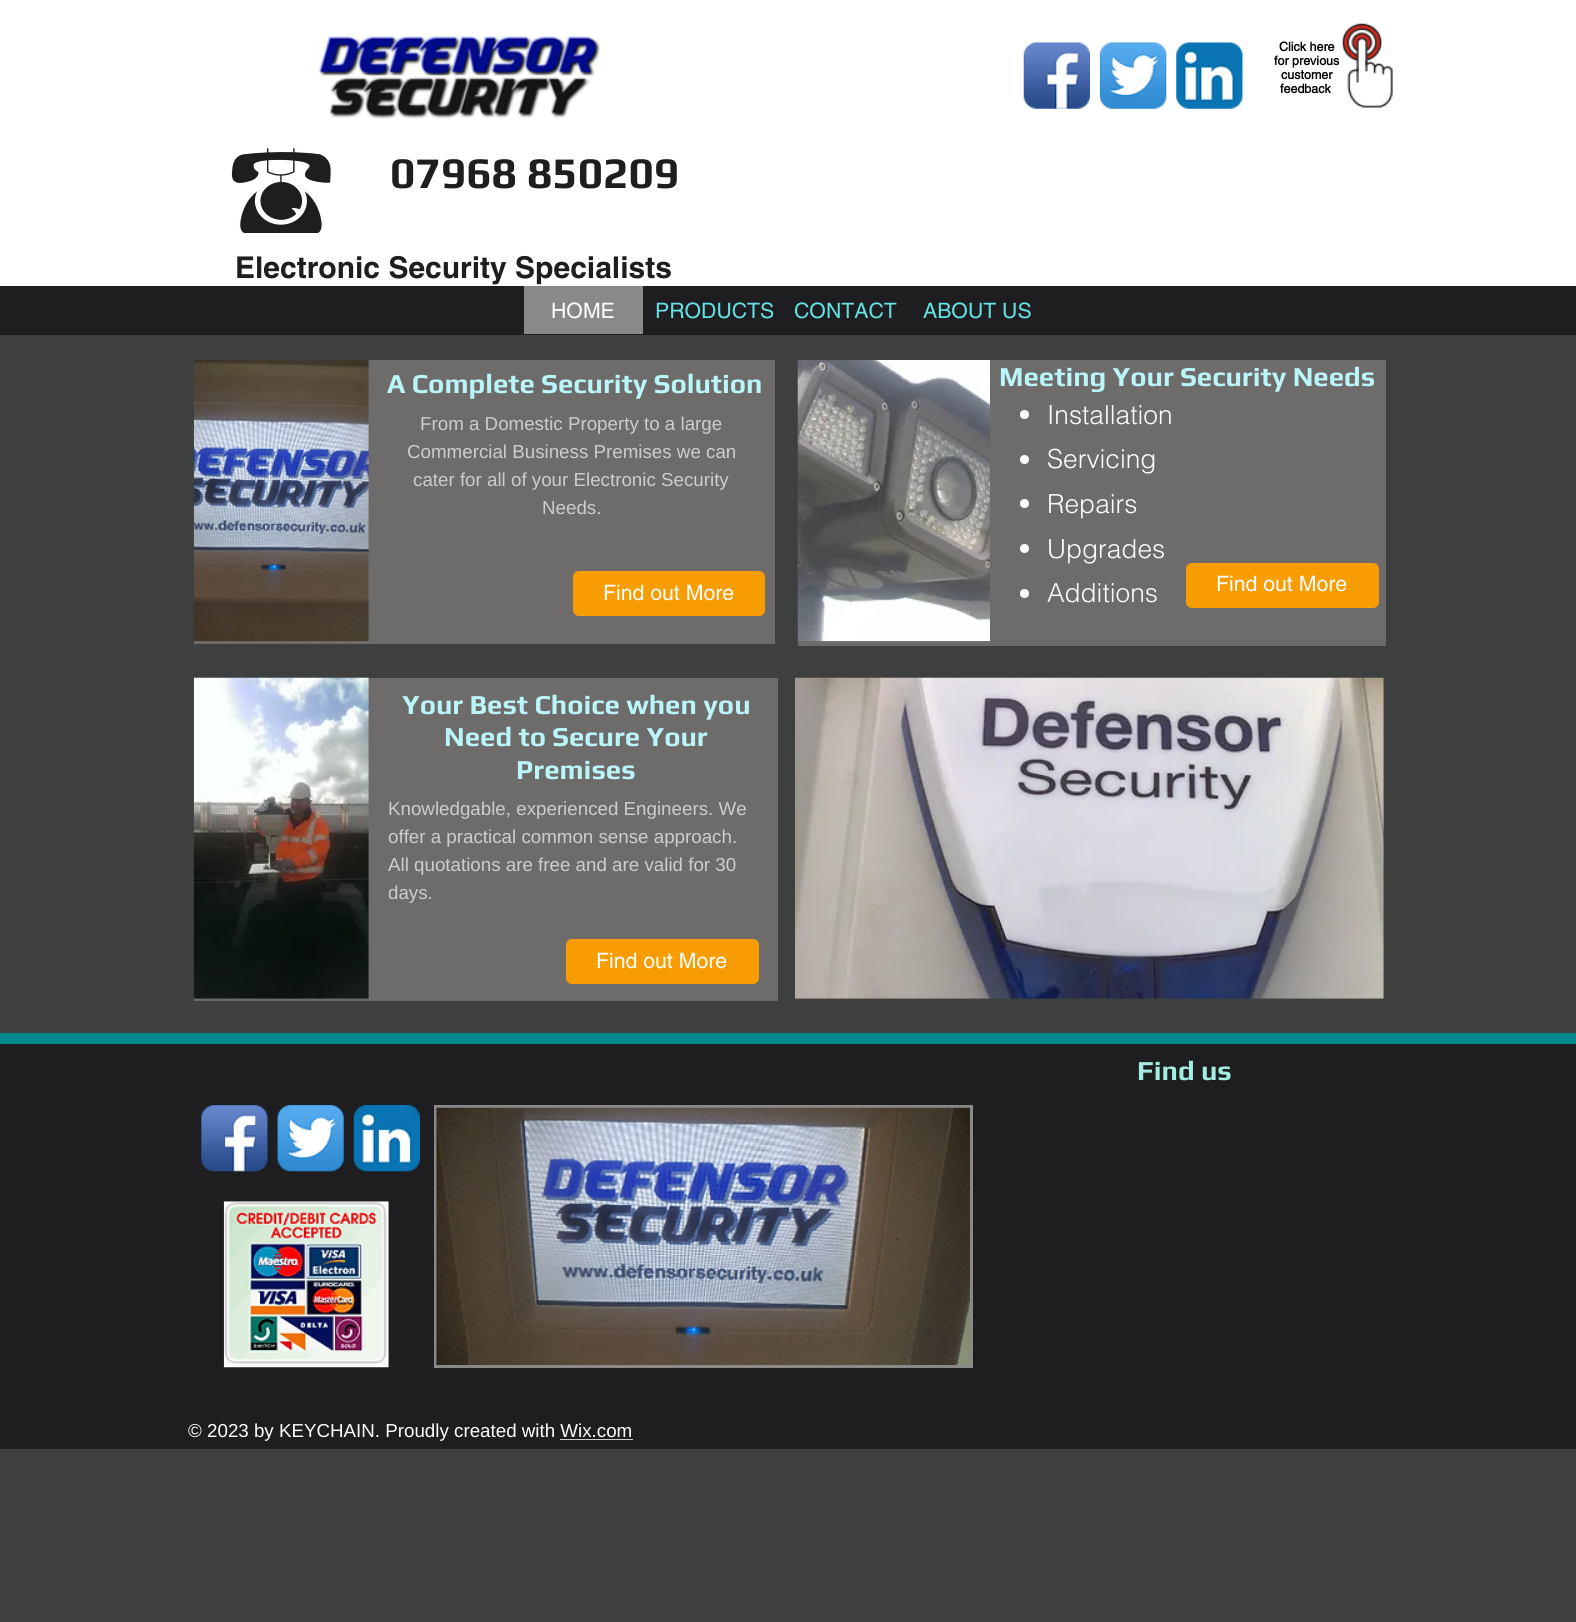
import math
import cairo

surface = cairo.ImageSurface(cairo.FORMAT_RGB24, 1576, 1622)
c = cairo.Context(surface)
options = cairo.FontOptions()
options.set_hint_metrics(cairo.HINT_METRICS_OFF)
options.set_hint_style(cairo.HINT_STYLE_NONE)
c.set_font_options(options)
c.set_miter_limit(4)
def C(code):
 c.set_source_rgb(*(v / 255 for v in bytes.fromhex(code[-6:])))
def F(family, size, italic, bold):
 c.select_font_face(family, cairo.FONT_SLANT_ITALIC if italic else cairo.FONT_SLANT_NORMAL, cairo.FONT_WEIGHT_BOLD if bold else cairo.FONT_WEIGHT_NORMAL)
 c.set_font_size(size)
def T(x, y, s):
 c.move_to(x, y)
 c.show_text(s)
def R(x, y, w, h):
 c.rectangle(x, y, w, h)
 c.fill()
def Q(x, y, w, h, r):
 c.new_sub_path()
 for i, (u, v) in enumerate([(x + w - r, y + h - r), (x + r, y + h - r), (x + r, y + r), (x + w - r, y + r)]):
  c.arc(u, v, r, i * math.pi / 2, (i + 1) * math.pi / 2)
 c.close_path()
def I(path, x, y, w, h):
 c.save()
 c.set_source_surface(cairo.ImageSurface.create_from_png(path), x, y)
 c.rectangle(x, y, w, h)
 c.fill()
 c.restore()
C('3e403f')
c.paint()
C('ffffff')
R(0,0,1576,286)
I('1.png',318,36,283,83)
I('2.png',1023,42,67,67)
I('3.png',1100,42,67,67)
I('4.png',1176,42,67,67)
F('helvetica',12.5,0,1)
C('000000')
T(1279,51,'Click here')
T(1274,65,'for previous')
T(1281,79,'customer')
T(1280,93,'feedback')
I('5.png',1342,23,51,85)
I('6.png',231,148,101,86)
F('Play',43.75,0,1)
C('1e1e20')
T(390,188,'07968 850209')
F('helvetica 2',30,0,1)
T(235,278,'Electronic Security Specialists')
R(0,286,1576,49)
C('898989')
R(524,286,119,48)
F('helvetica',21.25,0,0)
C('fdfdfd')
T(551,318,'HOME')
C('64e1e3')
T(655,318,'PRODUCTS')
T(794,318,'CONTACT')
T(923,318,'ABOUT US')
C('6e6b6b')
R(194,360,581,284)
I('7.png',193,360,176,282)
F('Play',27.5,0,1)
C('baf6f9')
T(387,393,'A Complete Security Solution')
F('Liberation Sans',18.75,0,0)
C('cdcdcd')
T(420,430,'From a Domestic Property to a large')
T(407,458,'Commercial Business Premises we can')
T(413,486,'cater for all of your Electronic Security')
T(542,514,'Needs.')
C('f79d02')
Q(573,571,192,45,6)
c.fill()
F('helvetica',21.25,0,0)
C('fdfdfd')
T(603,600,'Find out More')
C('6e6b6b')
R(798,360,588,286)
I('8.png',797,360,193,282)
F('Play',27.5,0,1)
C('baf6f9')
T(999,386,'Meeting Your Security Needs')
C('ffffff')
c.new_path()
c.arc(1024.5,414.5,4.5,0,2 * math.pi)
c.fill()
F('helvetica Light',26.25,0,0)
C('fdfdfd')
T(1047,424,'Installation')
C('ffffff')
c.new_path()
c.arc(1024.5,459.5,4.5,0,2 * math.pi)
c.fill()
C('fdfdfd')
T(1047,468,'Servicing')
C('ffffff')
c.new_path()
c.arc(1024.5,503.5,4.5,0,2 * math.pi)
c.fill()
C('fdfdfd')
T(1047,513,'Repairs')
C('ffffff')
c.new_path()
c.arc(1024.5,548.5,4.5,0,2 * math.pi)
c.fill()
C('fdfdfd')
T(1047,558,'Upgrades')
C('ffffff')
c.new_path()
c.arc(1024.5,593.5,4.5,0,2 * math.pi)
c.fill()
C('fdfdfd')
T(1047,602,'Additions')
C('f79d02')
Q(1186,563,193,45,6)
c.fill()
F('helvetica',21.25,0,0)
C('fdfdfd')
T(1216,591,'Find out More')
C('6e6b6b')
R(194,678,584,323)
I('9.png',193,677,176,322)
F('Play',27.5,0,1)
C('baf6f9')
T(402,714,'Your Best Choice when you')
T(444,746,'Need to Secure Your')
T(516,779,'Premises')
F('Liberation Sans',18.75,0,0)
C('cdcdcd')
T(388,815,'Knowledgable, experienced Engineers. We')
T(388,843,'offer a practical common sense approach.')
T(388,871,'All quotations are free and are valid for 30')
T(388,899,'days.')
C('f79d02')
Q(566,939,193,45,6)
c.fill()
F('helvetica',21.25,0,0)
C('fdfdfd')
T(596,968,'Find out More')
I('10.png',795,677,589,322)
C('1e1e20')
R(0,1044,1576,405)
C('01878e')
R(0,1033,1576,11)
F('Play',27.5,0,1)
C('a4ede2')
T(1137,1080,'Find us')
I('11.png',201,1105,67,67)
I('12.png',277,1105,67,67)
I('13.png',353,1105,67,67)
C('898989')
R(434,1105,539,263)
I('14.png',436,1107,534,258)
I('15.png',223,1201,166,167)
F('Liberation Sans',18.75,0,0)
C('fdfdfd')
T(188,1437,'© 2023 by KEYCHAIN. Proudly created with Wix.com')
C('cdcdcd')
R(560,1439,73,1)
surface.write_to_png('o.png')
